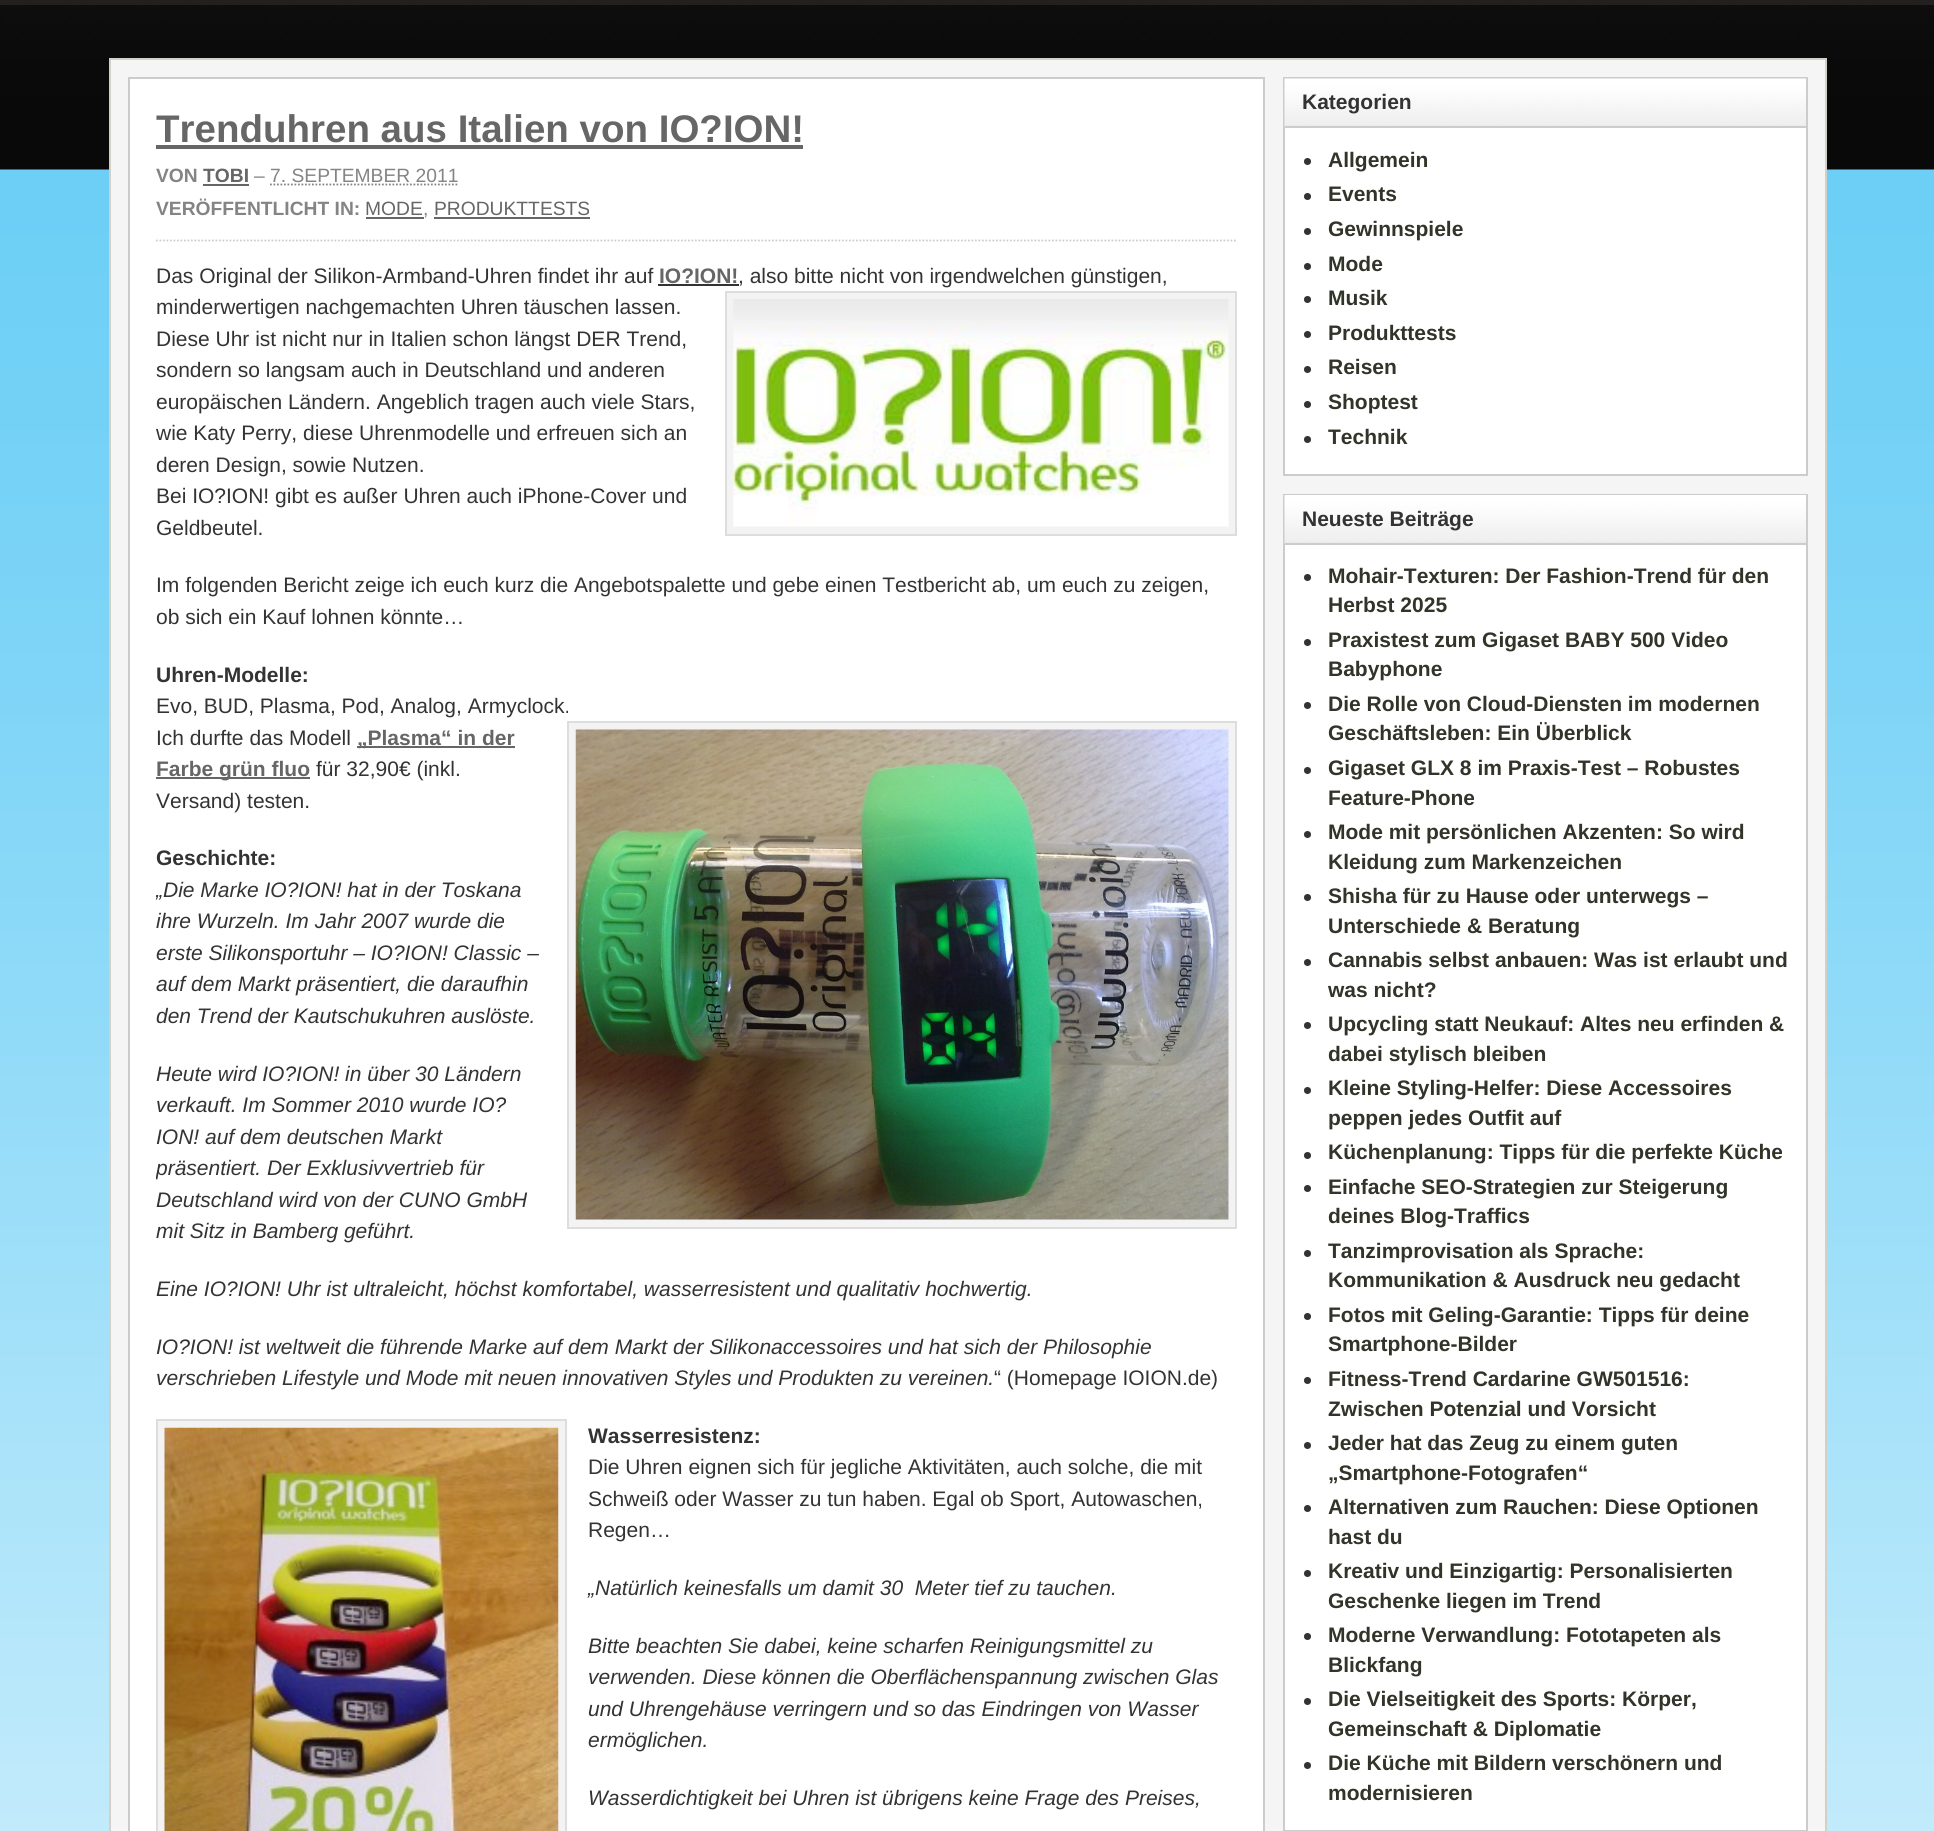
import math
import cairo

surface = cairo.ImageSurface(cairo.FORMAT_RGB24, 1934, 1831)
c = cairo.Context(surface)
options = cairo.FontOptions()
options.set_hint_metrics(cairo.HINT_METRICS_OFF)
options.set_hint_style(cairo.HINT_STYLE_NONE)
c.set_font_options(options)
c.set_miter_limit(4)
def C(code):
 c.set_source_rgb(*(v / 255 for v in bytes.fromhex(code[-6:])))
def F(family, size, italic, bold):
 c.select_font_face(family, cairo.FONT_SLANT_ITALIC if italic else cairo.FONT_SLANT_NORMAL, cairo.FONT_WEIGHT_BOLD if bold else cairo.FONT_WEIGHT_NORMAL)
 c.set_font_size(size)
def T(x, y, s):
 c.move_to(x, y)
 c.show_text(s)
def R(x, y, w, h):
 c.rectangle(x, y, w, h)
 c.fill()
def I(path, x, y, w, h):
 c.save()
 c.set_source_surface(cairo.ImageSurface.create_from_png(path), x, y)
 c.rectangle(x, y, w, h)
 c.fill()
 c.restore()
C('ffffff')
c.paint()
I('1.png',0,5,1934,1826)
C('22211f')
R(0,0,1934,5)
C('f5f5f5')
c.rectangle(110,59,1716,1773)
c.fill_preserve()
C('d3d1c7')
c.stroke()
C('ffffff')
c.rectangle(129,78,1135,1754)
c.fill_preserve()
C('cccccc')
c.stroke()
F('Liberation Sans',38.5,0,1)
C('666666')
T(156,142,'Trenduhren aus Italien von IO?ION!')
R(156,145,647,4)
c.new_path()
c.move_to(156,240.5)
c.line_to(1237,240.5)
C('cccccc')
c.set_line_width(1.8)
c.set_dash([1.75,1.75])
c.stroke()
F('Liberation Sans',19.25,0,1)
C('848485')
T(156,182,'VON')
C('666666')
T(203,182,'TOBI')
R(203,184,46,2)
F('Liberation Sans',19.25,0,0)
C('848485')
T(254,182,'– 7. SEPTEMBER 2011')
c.new_path()
c.move_to(270,184.5)
c.line_to(458.5,184.5)
c.stroke()
F('Liberation Sans',19.25,0,1)
T(156,215,'VERÖFFENTLICHT IN:')
F('Liberation Sans',19.25,0,0)
C('666666')
T(365,215,'MODE')
R(366,217,58,2)
C('848485')
T(423,215,',')
C('666666')
T(434,215,'PRODUKTTESTS')
R(434,217,156,2)
F('Liberation Sans',21,0,0)
C('333333')
T(156,283,'Das Original der Silikon-Armband-Uhren findet ihr auf')
F('Liberation Sans',21,0,1)
C('666666')
T(659,283,'IO?ION!')
C('333333')
R(658,284,81,2)
F('Liberation Sans',21,0,0)
T(738,283,', also bitte nicht von irgendwelchen günstigen,')
T(156,314,'minderwertigen nachgemachten Uhren täuschen lassen.')
C('f3f3f3')
c.rectangle(726,292,510,243)
c.fill_preserve()
C('dddddd')
c.set_line_width(2)
c.set_dash([])
c.stroke()
I('2.png',733,299,496,228)
C('333333')
T(156,346,'Diese Uhr ist nicht nur in Italien schon längst DER Trend,')
T(156,377,'sondern so langsam auch in Deutschland und anderen')
T(156,409,'europäischen Ländern. Angeblich tragen auch viele Stars,')
T(156,440,'wie Katy Perry, diese Uhrenmodelle und erfreuen sich an')
T(156,472,'deren Design, sowie Nutzen.')
T(156,503,'Bei IO?ION! gibt es außer Uhren auch iPhone-Cover und')
T(156,535,'Geldbeutel.')
T(156,592,'Im folgenden Bericht zeige ich euch kurz die Angebotspalette und gebe einen Testbericht ab, um euch zu zeigen,')
T(156,624,'ob sich ein Kauf lohnen könnte…')
F('Liberation Sans',21,0,1)
T(156,682,'Uhren-Modelle:')
F('Liberation Sans',21,0,0)
T(156,713,'Evo, BUD, Plasma, Pod, Analog, Armyclock.')
T(156,745,'Ich durfte das Modell')
C('666666')
R(357,746,158,2)
F('Liberation Sans',21,0,1)
T(357,745,'„Plasma“ in der')
C('f3f3f3')
c.rectangle(568,722,668,506)
c.fill_preserve()
C('dddddd')
c.stroke()
I('3.png',575,729,654,491)
C('666666')
R(156,777,154,2)
T(156,776,'Farbe grün fluo')
F('Liberation Sans',21,0,0)
C('333333')
T(316,776,'für 32,90€ (inkl.')
T(156,808,'Versand) testen.')
F('Liberation Sans',21,0,1)
T(156,865,'Geschichte:')
c.save()
c.rectangle(156,259,1081,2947)
c.clip()
F('Liberation Sans',21,1,0)
T(156,897,'„Die Marke IO?ION! hat in der Toskana')
c.restore()
F('Liberation Sans',21,1,0)
T(156,928,'ihre Wurzeln. Im Jahr 2007 wurde die')
T(156,960,'erste Silikonsportuhr – IO?ION! Classic –')
T(156,991,'auf dem Markt präsentiert, die daraufhin')
T(156,1023,'den Trend der Kautschukuhren auslöste.')
T(156,1081,'Heute wird IO?ION! in über 30 Ländern')
T(156,1112,'verkauft. Im Sommer 2010 wurde IO?')
T(156,1144,'ION! auf dem deutschen Markt')
c.save()
c.rectangle(156,259,1081,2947)
c.clip()
T(156,1175,'präsentiert. Der Exklusivvertrieb für')
c.restore()
T(156,1207,'Deutschland wird von der CUNO GmbH')
T(156,1238,'mit Sitz in Bamberg geführt.')
T(156,1296,'Eine IO?ION! Uhr ist ultraleicht, höchst komfortabel, wasserresistent und qualitativ hochwertig.')
T(156,1354,'IO?ION! ist weltweit die führende Marke auf dem Markt der Silikonaccessoires und hat sich der Philosophie')
T(156,1385,'verschrieben Lifestyle und Mode mit neuen innovativen Styles und Produkten zu vereinen.')
F('Liberation Sans',21,0,0)
T(994,1385,'“ (Homepage IOION.de)')
C('f3f3f3')
c.rectangle(157,1420,409,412)
c.fill_preserve()
C('dddddd')
c.stroke()
I('4.png',164,1427,395,404)
F('Liberation Sans',21,0,1)
C('333333')
T(588,1443,'Wasserresistenz:')
F('Liberation Sans',21,0,0)
T(588,1474,'Die Uhren eignen sich für jegliche Aktivitäten, auch solche, die mit')
T(588,1506,'Schweiß oder Wasser zu tun haben. Egal ob Sport, Autowaschen,')
T(588,1537,'Regen…')
F('Liberation Sans',21,1,0)
T(588,1595,'„Natürlich keinesfalls um damit 30  Meter tief zu tauchen.')
T(588,1653,'Bitte beachten Sie dabei, keine scharfen Reinigungsmittel zu')
T(588,1684,'verwenden. Diese können die Oberflächenspannung zwischen Glas')
T(588,1716,'und Uhrengehäuse verringern und so das Eindringen von Wasser')
T(588,1747,'ermöglichen.')
T(588,1805,'Wasserdichtigkeit bei Uhren ist übrigens keine Frage des Preises,')
C('ffffff')
R(1285,128,521,346)
c.rectangle(1284,78,523,397)
C('cccccc')
c.stroke()
I('5.png',1284,78,522,50)
R(1285,126,521,2)
F('Liberation Sans',21,0,1)
C('333333')
T(1302,109,'Kategorien')
c.new_path()
c.arc(1307.5,161.5,3.5,0,2 * math.pi)
c.fill()
C('313428')
T(1328,167,'Allgemein')
C('333333')
c.new_path()
c.arc(1307.5,196.5,3.5,0,2 * math.pi)
c.fill()
C('313428')
T(1328,201,'Events')
C('333333')
c.new_path()
c.arc(1307.5,231.5,3.5,0,2 * math.pi)
c.fill()
C('313428')
T(1328,236,'Gewinnspiele')
C('333333')
c.new_path()
c.arc(1307.5,266.5,3.5,0,2 * math.pi)
c.fill()
C('313428')
T(1328,271,'Mode')
C('333333')
c.new_path()
c.arc(1307.5,299.5,3.5,0,2 * math.pi)
c.fill()
C('313428')
T(1328,305,'Musik')
C('333333')
c.new_path()
c.arc(1307.5,334.5,3.5,0,2 * math.pi)
c.fill()
C('313428')
T(1328,340,'Produkttests')
C('333333')
c.new_path()
c.arc(1307.5,369.5,3.5,0,2 * math.pi)
c.fill()
C('313428')
T(1328,374,'Reisen')
C('333333')
c.new_path()
c.arc(1307.5,404.5,3.5,0,2 * math.pi)
c.fill()
C('313428')
T(1328,409,'Shoptest')
C('333333')
c.new_path()
c.arc(1307.5,439.5,3.5,0,2 * math.pi)
c.fill()
C('313428')
T(1328,444,'Technik')
C('ffffff')
R(1285,545,521,1285)
c.rectangle(1284,495,523,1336)
C('cccccc')
c.stroke()
I('6.png',1284,495,522,49)
R(1285,543,521,2)
C('333333')
T(1302,526,'Neueste Beiträge')
c.new_path()
c.arc(1307.5,577.5,3.5,0,2 * math.pi)
c.fill()
C('313428')
T(1328,583,'Mohair-Texturen: Der Fashion-Trend für den')
T(1328,612,'Herbst 2025')
C('333333')
c.new_path()
c.arc(1307.5,642.5,3.5,0,2 * math.pi)
c.fill()
C('313428')
T(1328,647,'Praxistest zum Gigaset BABY 500 Video')
T(1328,676,'Babyphone')
C('333333')
c.new_path()
c.arc(1307.5,705.5,3.5,0,2 * math.pi)
c.fill()
C('313428')
T(1328,711,'Die Rolle von Cloud-Diensten im modernen')
T(1328,740,'Geschäftsleben: Ein Überblick')
C('333333')
c.new_path()
c.arc(1307.5,770.5,3.5,0,2 * math.pi)
c.fill()
C('313428')
T(1328,775,'Gigaset GLX 8 im Praxis-Test – Robustes')
T(1328,805,'Feature-Phone')
C('333333')
c.new_path()
c.arc(1307.5,834.5,3.5,0,2 * math.pi)
c.fill()
C('313428')
T(1328,839,'Mode mit persönlichen Akzenten: So wird')
T(1328,869,'Kleidung zum Markenzeichen')
C('333333')
c.new_path()
c.arc(1307.5,897.5,3.5,0,2 * math.pi)
c.fill()
C('313428')
T(1328,903,'Shisha für zu Hause oder unterwegs –')
T(1328,933,'Unterschiede & Beratung')
C('333333')
c.new_path()
c.arc(1307.5,962.5,3.5,0,2 * math.pi)
c.fill()
C('313428')
T(1328,967,'Cannabis selbst anbauen: Was ist erlaubt und')
T(1328,997,'was nicht?')
C('333333')
c.new_path()
c.arc(1307.5,1025.5,3.5,0,2 * math.pi)
c.fill()
C('313428')
T(1328,1031,'Upcycling statt Neukauf: Altes neu erfinden &')
T(1328,1061,'dabei stylisch bleiben')
C('333333')
c.new_path()
c.arc(1307.5,1090.5,3.5,0,2 * math.pi)
c.fill()
C('313428')
T(1328,1095,'Kleine Styling-Helfer: Diese Accessoires')
T(1328,1125,'peppen jedes Outfit auf')
C('333333')
c.new_path()
c.arc(1307.5,1155.5,3.5,0,2 * math.pi)
c.fill()
C('313428')
T(1328,1159,'Küchenplanung: Tipps für die perfekte Küche')
C('333333')
c.new_path()
c.arc(1307.5,1188.5,3.5,0,2 * math.pi)
c.fill()
C('313428')
T(1328,1194,'Einfache SEO-Strategien zur Steigerung')
T(1328,1223,'deines Blog-Traffics')
C('333333')
c.new_path()
c.arc(1307.5,1253.5,3.5,0,2 * math.pi)
c.fill()
C('313428')
T(1328,1258,'Tanzimprovisation als Sprache:')
T(1328,1287,'Kommunikation & Ausdruck neu gedacht')
C('333333')
c.new_path()
c.arc(1307.5,1316.5,3.5,0,2 * math.pi)
c.fill()
C('313428')
T(1328,1322,'Fotos mit Geling-Garantie: Tipps für deine')
T(1328,1351,'Smartphone-Bilder')
C('333333')
c.new_path()
c.arc(1307.5,1380.5,3.5,0,2 * math.pi)
c.fill()
C('313428')
T(1328,1386,'Fitness-Trend Cardarine GW501516:')
T(1328,1416,'Zwischen Potenzial und Vorsicht')
C('333333')
c.new_path()
c.arc(1307.5,1445.5,3.5,0,2 * math.pi)
c.fill()
C('313428')
T(1328,1450,'Jeder hat das Zeug zu einem guten')
T(1328,1480,'„Smartphone-Fotografen“')
C('333333')
c.new_path()
c.arc(1307.5,1508.5,3.5,0,2 * math.pi)
c.fill()
C('313428')
T(1328,1514,'Alternativen zum Rauchen: Diese Optionen')
T(1328,1544,'hast du')
C('333333')
c.new_path()
c.arc(1307.5,1573.5,3.5,0,2 * math.pi)
c.fill()
C('313428')
T(1328,1578,'Kreativ und Einzigartig: Personalisierten')
T(1328,1608,'Geschenke liegen im Trend')
C('333333')
c.new_path()
c.arc(1307.5,1636.5,3.5,0,2 * math.pi)
c.fill()
C('313428')
T(1328,1642,'Moderne Verwandlung: Fototapeten als')
T(1328,1672,'Blickfang')
C('333333')
c.new_path()
c.arc(1307.5,1701.5,3.5,0,2 * math.pi)
c.fill()
C('313428')
T(1328,1706,'Die Vielseitigkeit des Sports: Körper,')
T(1328,1736,'Gemeinschaft & Diplomatie')
C('333333')
c.new_path()
c.arc(1307.5,1765.5,3.5,0,2 * math.pi)
c.fill()
C('313428')
T(1328,1770,'Die Küche mit Bildern verschönern und')
T(1328,1800,'modernisieren')
surface.write_to_png('o.png')
